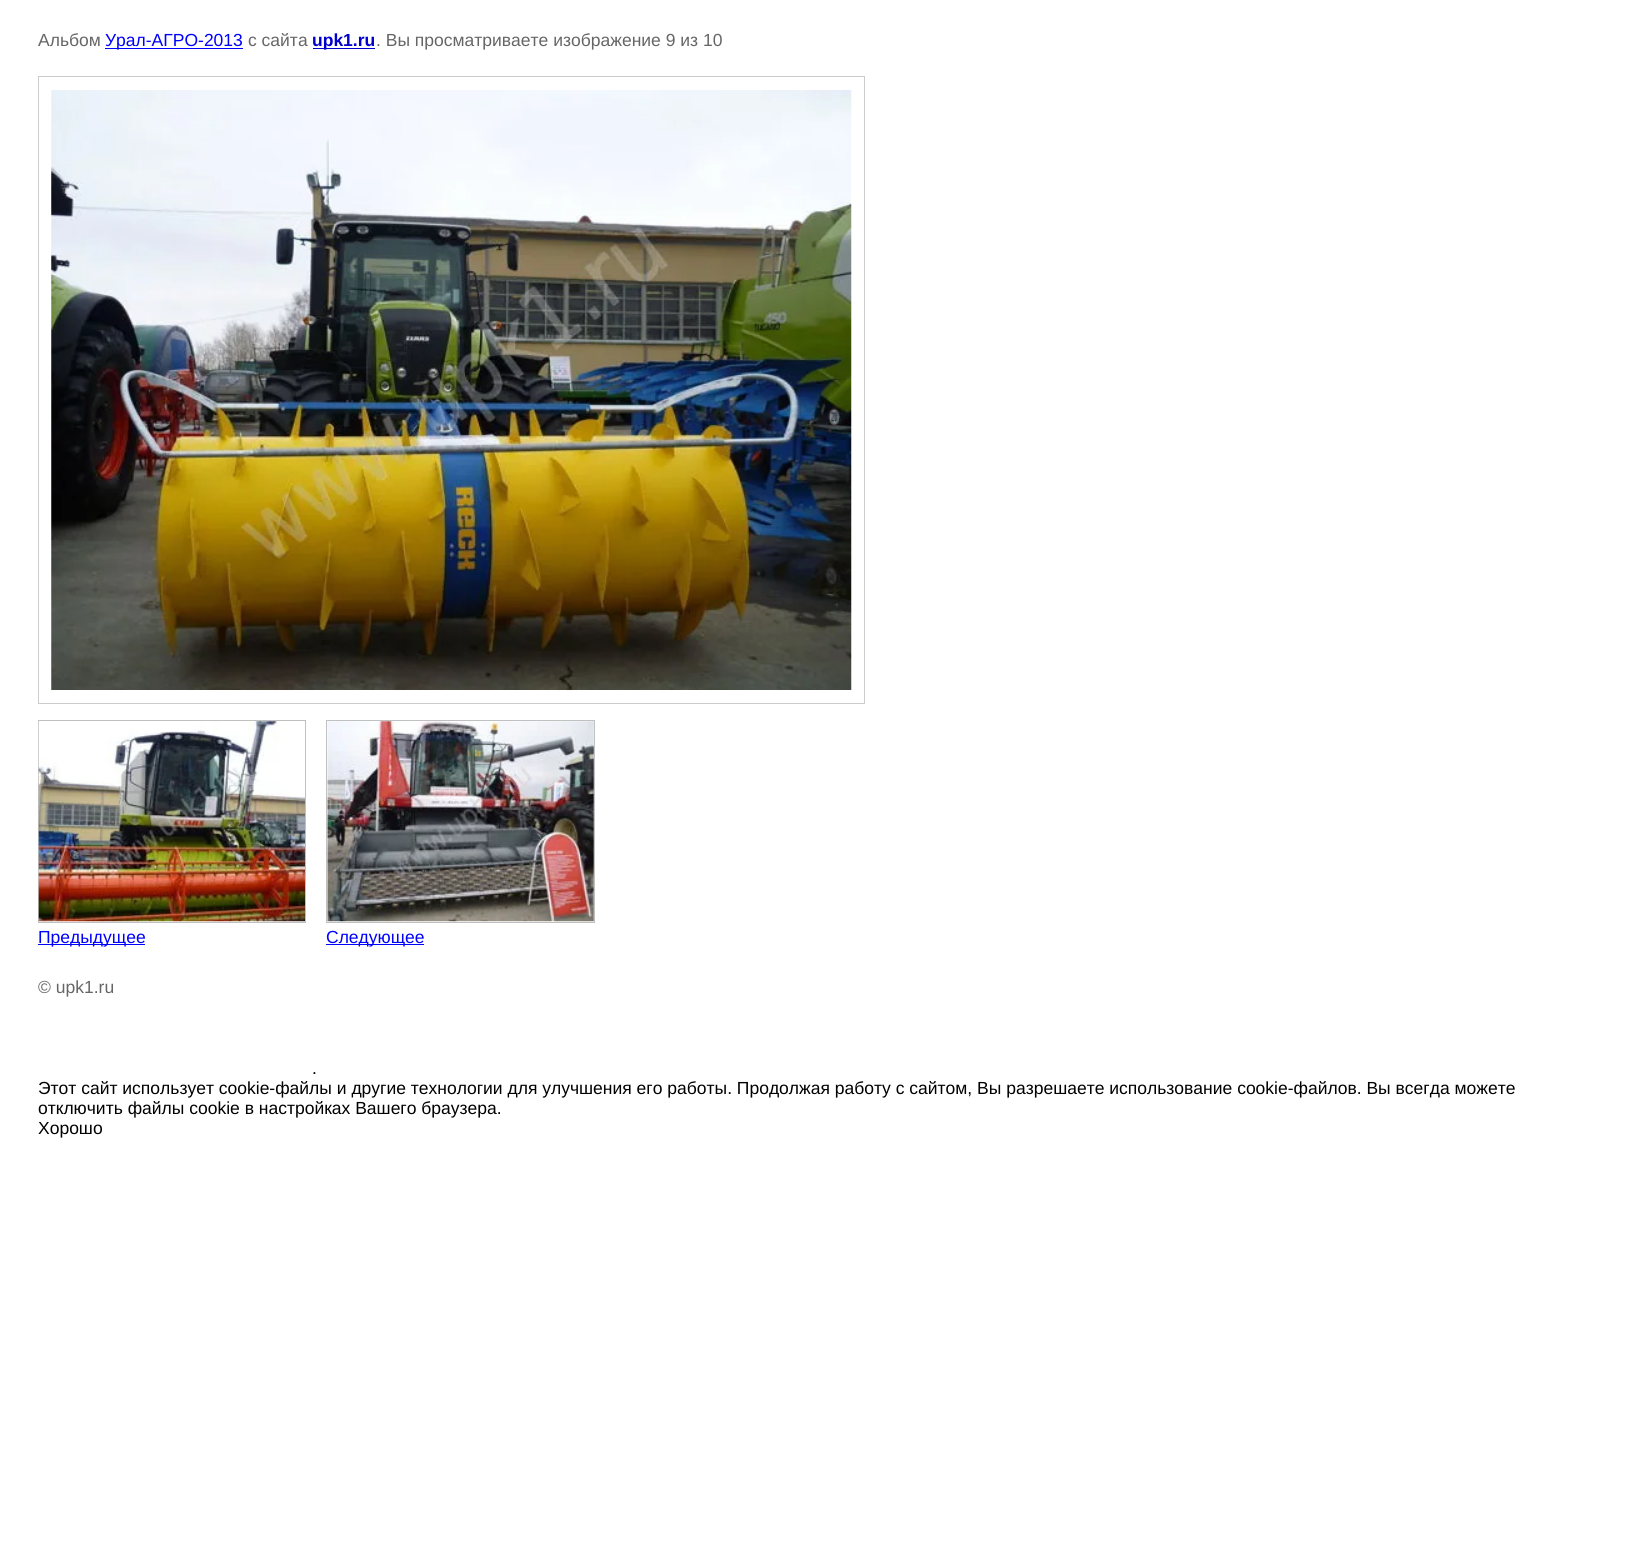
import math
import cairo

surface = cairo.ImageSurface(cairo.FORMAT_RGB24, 1634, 1565)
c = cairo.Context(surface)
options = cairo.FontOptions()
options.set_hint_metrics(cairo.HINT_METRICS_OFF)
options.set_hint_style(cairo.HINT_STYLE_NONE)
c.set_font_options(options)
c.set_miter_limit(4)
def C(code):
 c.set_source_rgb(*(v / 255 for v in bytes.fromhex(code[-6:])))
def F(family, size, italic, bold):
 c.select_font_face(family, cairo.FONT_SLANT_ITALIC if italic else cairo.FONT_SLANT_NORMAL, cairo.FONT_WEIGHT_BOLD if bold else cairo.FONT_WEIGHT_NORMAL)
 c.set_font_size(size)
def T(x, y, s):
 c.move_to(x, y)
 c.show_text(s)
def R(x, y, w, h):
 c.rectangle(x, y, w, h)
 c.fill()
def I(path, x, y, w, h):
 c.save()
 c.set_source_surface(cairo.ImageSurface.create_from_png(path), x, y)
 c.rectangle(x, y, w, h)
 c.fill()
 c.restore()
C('ffffff')
c.paint()
F('Liberation Sans',17.5,0,0)
C('666666')
T(38,46,'Альбом')
C('0000ff')
R(105,48,138,1)
T(105,46,'Урал-АГРО-2013')
C('666666')
T(248,46,'с сайта')
C('0000cc')
R(313,48,62,1)
F('Liberation Sans',17.5,0,1)
T(312,46,'upk1.ru')
F('Liberation Sans',17.5,0,0)
C('666666')
T(376,46,'. Вы просматриваете изображение 9 из 10')
c.rectangle(38.5,76.5,826,627)
C('cccccc')
c.set_line_width(1)
c.stroke()
I('1.png',51,90,801,600)
c.rectangle(38.5,720.5,267,202)
C('c0c0c0')
c.stroke()
I('2.png',38,721,267,201)
C('0000ff')
R(38,944,107,1)
T(38,943,'Предыдущее')
c.rectangle(326.5,720.5,268,202)
C('c0c0c0')
c.stroke()
I('3.png',327,721,267,201)
C('0000ff')
R(326,944,98,1)
T(326,943,'Следующее')
C('666666')
T(38,993,'© upk1.ru')
C('000000')
T(312,1074,'.')
T(38,1094,'Этот сайт использует cookie-файлы и другие технологии для улучшения его работы. Продолжая работу с сайтом, Вы разрешаете использование cookie-файлов. Вы всегда можете')
T(38,1114,'отключить файлы cookie в настройках Вашего браузера.')
T(38,1134,'Хорошо')
surface.write_to_png('o.png')
